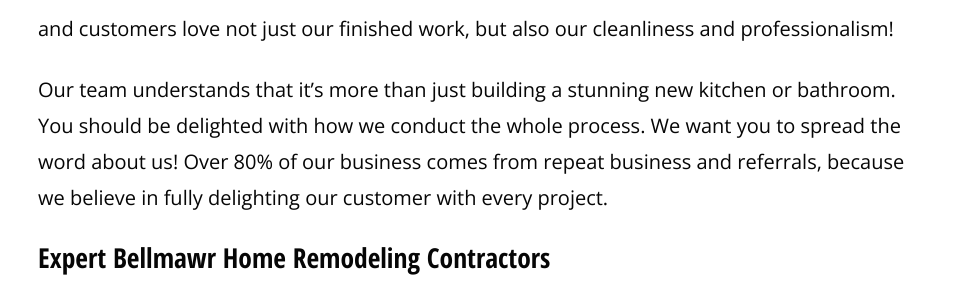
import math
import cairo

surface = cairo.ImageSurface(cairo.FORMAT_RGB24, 957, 301)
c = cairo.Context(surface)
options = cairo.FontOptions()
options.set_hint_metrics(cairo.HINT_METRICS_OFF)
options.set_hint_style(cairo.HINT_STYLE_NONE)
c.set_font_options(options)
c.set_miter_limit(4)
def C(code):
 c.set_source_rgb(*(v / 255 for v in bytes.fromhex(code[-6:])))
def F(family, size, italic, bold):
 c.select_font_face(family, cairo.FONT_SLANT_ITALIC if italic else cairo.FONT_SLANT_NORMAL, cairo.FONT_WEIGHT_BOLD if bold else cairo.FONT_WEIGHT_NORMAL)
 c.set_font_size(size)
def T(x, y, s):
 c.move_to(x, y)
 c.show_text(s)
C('ffffff')
c.paint()
F('Open Sans',20,0,0)
C('060606')
T(38,36,'and customers love not just our finished work, but also our cleanliness and professionalism!')
T(38,97,'Our team understands that it’s more than just building a stunning new kitchen or bathroom.')
T(38,133,'You should be delighted with how we conduct the whole process. We want you to spread the')
T(38,169,'word about us! Over 80% of our business comes from repeat business and referrals, because')
T(38,205,'we believe in fully delighting our customer with every project.')
F('Open Sans Condensed',27.5,0,1)
T(38,268,'Expert Bellmawr Home Remodeling Contractors')
surface.write_to_png('o.png')
